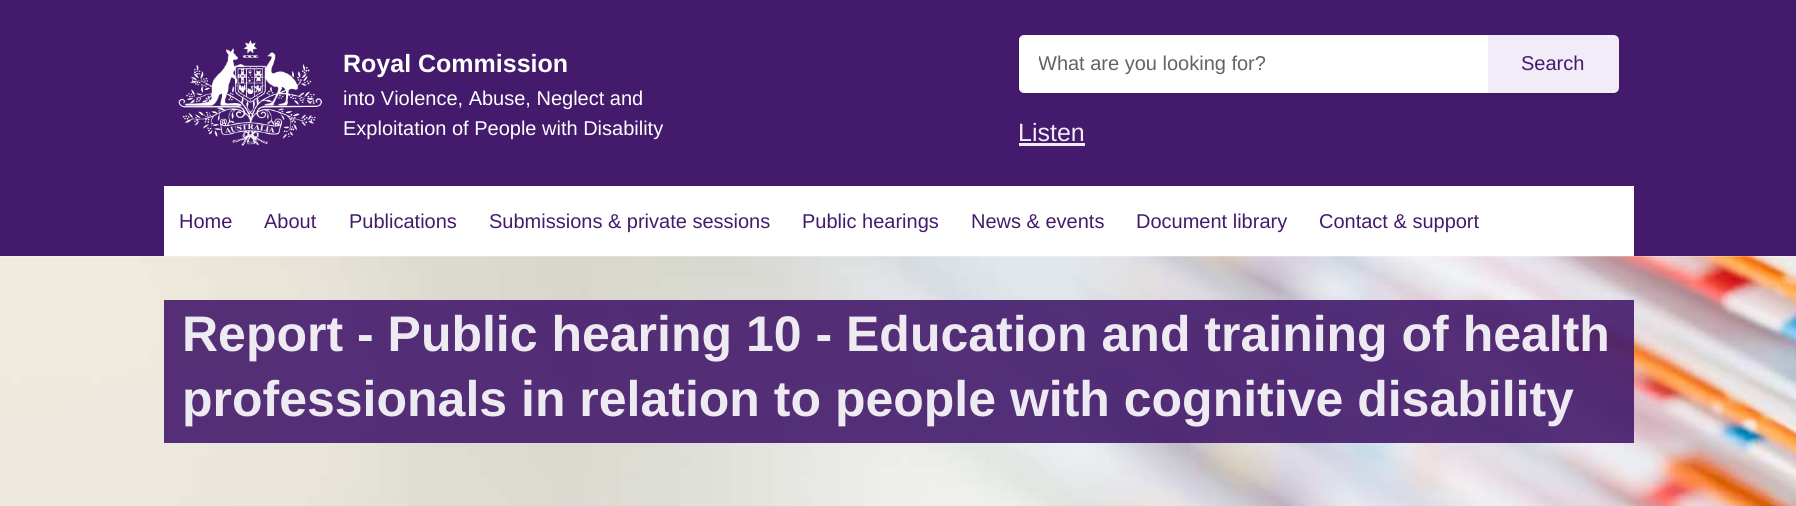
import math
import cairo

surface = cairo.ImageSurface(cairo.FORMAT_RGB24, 1796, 506)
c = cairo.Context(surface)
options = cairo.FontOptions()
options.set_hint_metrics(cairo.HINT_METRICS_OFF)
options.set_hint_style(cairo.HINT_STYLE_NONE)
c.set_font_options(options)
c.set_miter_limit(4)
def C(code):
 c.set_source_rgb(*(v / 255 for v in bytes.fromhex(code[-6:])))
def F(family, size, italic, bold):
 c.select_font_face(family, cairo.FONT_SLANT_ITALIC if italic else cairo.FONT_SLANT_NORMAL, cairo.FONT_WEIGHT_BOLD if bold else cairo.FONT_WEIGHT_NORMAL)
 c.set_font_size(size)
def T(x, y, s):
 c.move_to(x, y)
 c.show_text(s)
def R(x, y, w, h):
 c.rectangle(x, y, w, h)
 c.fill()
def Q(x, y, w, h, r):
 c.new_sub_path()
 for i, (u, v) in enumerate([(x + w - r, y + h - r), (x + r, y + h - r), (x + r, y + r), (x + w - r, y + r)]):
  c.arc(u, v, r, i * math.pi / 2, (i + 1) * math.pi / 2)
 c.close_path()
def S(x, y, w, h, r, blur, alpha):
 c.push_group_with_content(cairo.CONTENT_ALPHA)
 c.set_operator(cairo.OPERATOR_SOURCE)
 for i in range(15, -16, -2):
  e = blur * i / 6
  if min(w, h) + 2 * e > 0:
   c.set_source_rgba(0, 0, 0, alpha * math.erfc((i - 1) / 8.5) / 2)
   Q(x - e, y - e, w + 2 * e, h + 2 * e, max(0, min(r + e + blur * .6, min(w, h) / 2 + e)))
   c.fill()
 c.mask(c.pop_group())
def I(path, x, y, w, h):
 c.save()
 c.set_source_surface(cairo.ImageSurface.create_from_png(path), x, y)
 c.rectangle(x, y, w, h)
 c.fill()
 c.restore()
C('ffffff')
c.paint()
C('441b6c')
R(0,0,1796,256)
I('1.png',178,40,144,106)
F('Liberation Sans',25,0,1)
C('ffffff')
T(343,72,'Royal Commission')
F('Liberation Sans',20,0,0)
T(343,105,'into Violence, Abuse, Neglect and')
T(343,135,'Exploitation of People with Disability')
C('000000')
S(1019,36,600,58,5,2,.15)
C('ffffff')
Q(1019,35,475,58,5)
c.fill()
c.save()
c.rectangle(1039,53,435,22)
c.clip()
C('636363')
T(1038,70,'What are you looking for?')
c.restore()
C('f2ebf8')
c.new_path()
c.move_to(1490,37)
c.line_to(1614,37)
c.curve_to(1615.5,37,1617,38.5,1617,40)
c.line_to(1617,88)
c.curve_to(1617,89.5,1615.5,91,1614,91)
c.line_to(1490,91)
c.close_path()
c.fill_preserve()
c.set_line_width(4)
c.stroke()
C('441b6c')
T(1521,70,'Search')
F('Liberation Sans',25,0,0)
C('f2ebf8')
T(1018,141,'Listen')
R(1019,143,66,3)
C('ffffff')
R(164,186,1470,70)
F('Liberation Sans',20,0,0)
C('441b6c')
T(179,228,'Home')
T(264,228,'About')
T(349,228,'Publications')
T(489,228,'Submissions & private sessions')
T(802,228,'Public hearings')
T(971,228,'News & events')
T(1136,228,'Document library')
T(1319,228,'Contact & support')
I('2.png',0,256,1796,250)
c.set_source_rgba(0.267,0.106,0.424,0.9)
R(164,300,1470,143)
F('Liberation Sans',50,0,1)
C('eeeaf1')
T(182,351,'Report - Public hearing 10 - Education and training of health')
T(182,416,'professionals in relation to people with cognitive disability')
surface.write_to_png('o.png')
